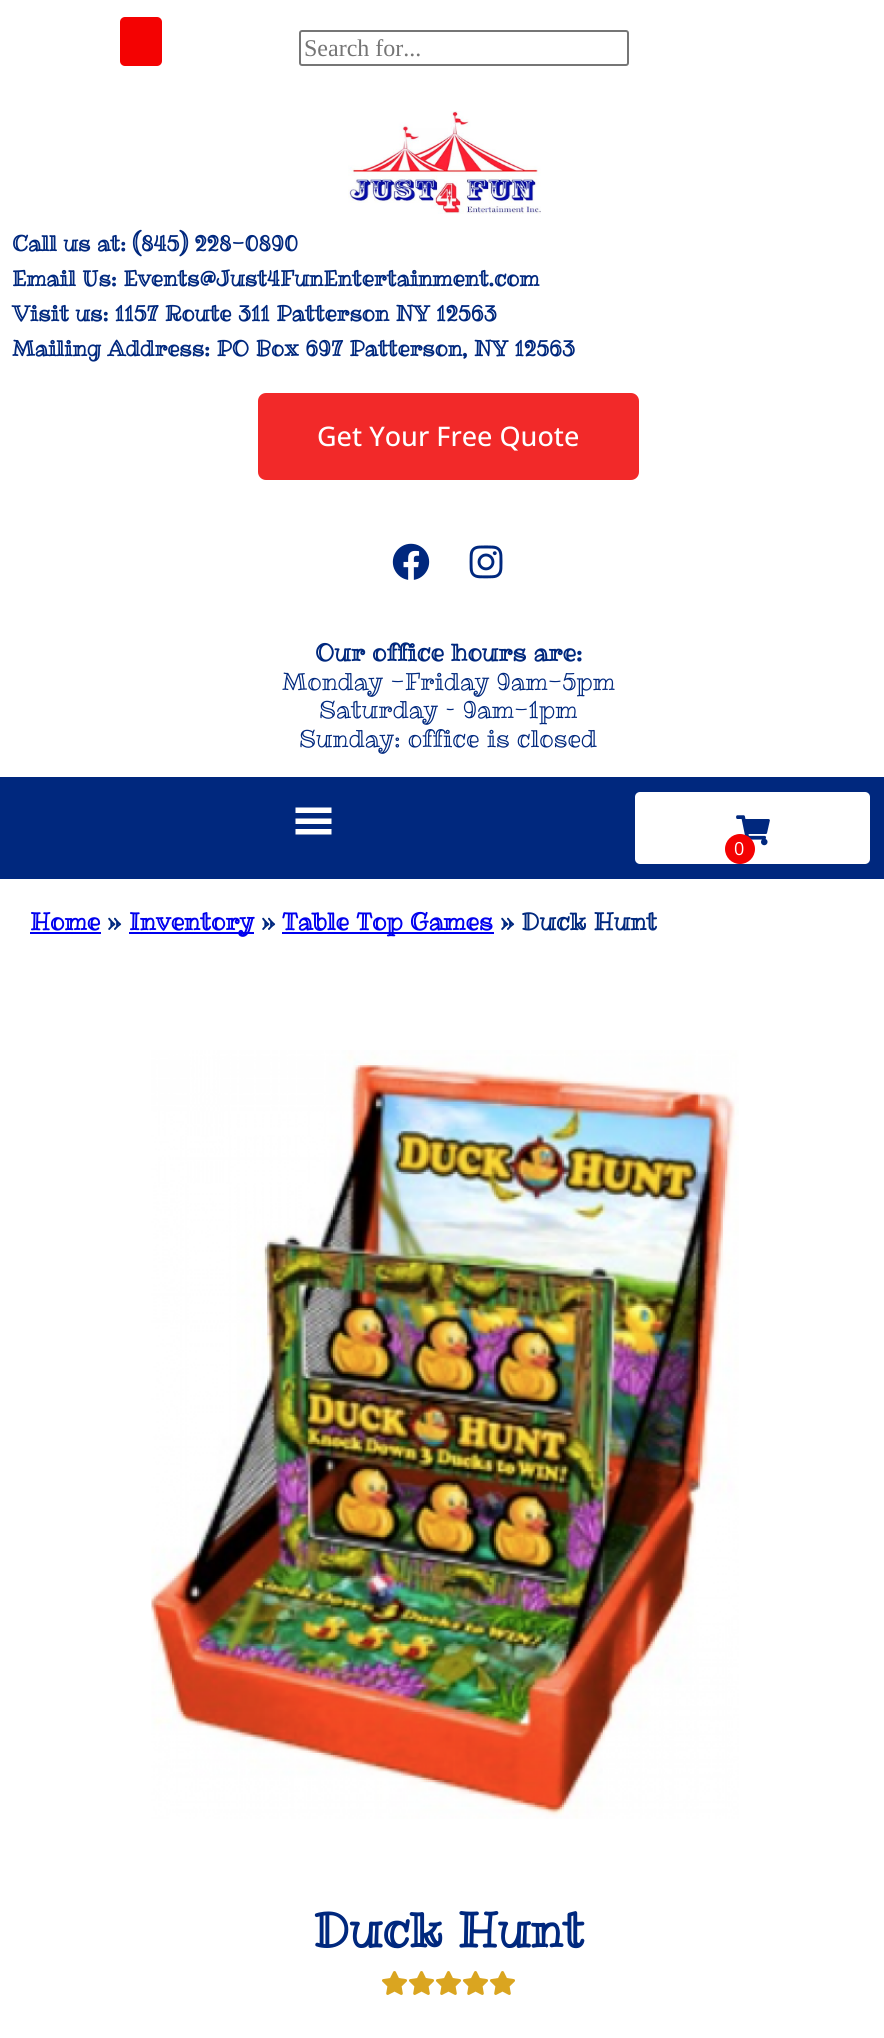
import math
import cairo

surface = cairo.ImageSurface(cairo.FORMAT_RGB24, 884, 2038)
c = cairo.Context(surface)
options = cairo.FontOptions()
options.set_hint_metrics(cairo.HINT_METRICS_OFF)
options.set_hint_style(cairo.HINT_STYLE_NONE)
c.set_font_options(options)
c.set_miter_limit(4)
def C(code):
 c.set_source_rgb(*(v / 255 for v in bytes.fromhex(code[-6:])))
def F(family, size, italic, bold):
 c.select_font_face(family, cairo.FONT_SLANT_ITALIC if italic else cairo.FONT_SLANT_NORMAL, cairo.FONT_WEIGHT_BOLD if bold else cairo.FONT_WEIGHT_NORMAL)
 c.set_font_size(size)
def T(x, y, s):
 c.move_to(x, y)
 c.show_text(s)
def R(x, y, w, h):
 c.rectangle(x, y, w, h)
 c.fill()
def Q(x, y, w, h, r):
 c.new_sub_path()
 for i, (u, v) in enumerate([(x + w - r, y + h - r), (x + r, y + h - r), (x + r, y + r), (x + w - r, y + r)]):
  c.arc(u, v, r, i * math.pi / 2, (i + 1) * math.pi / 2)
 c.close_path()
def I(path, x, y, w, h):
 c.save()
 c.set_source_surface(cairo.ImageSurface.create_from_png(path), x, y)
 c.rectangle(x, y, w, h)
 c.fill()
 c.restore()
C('ffffff')
c.paint()
C('f40202')
Q(120,17,42,49,5)
c.fill()
Q(300,31,328,34,2)
C('767676')
c.stroke()
F('Liberation Serif',24,0,0)
C('757575')
T(304,56,'Search for...')
I('1.png',348,111,193,103)
F('Ribeye Marrow',21.6,0,1)
C('00287e')
T(12,251,'Call us at: (845) 228-0890')
T(12,286,'Email Us: Events@Just4FunEntertainment.com')
T(12,321,'Visit us: 1157 Route 311 Patterson NY 12563')
T(12,356,'Mailing Address: PO Box 697 Patterson, NY 12563')
C('f22929')
Q(258,393,381,87,8)
c.fill()
F('Open Sans Medium',27,0,0)
C('ffffff')
T(317,446,'Get Your Free Quote')
I('2.png',392,543,38,37)
I('3.png',469,545,34,34)
F('Ribeye Marrow',24,0,1)
C('00287e')
T(315,661,'Our office hours are:')
F('Ribeye Marrow',24,0,0)
T(282,690,'Monday -Friday 9am-5pm')
T(319,718,'Saturday – 9am-1pm')
T(299,747,'Sunday: office is closed')
R(0,777,884,102)
C('ffffff')
c.new_path()
c.move_to(331.5,813)
c.line_to(331.5,807.5)
c.line_to(295.5,807.5)
c.line_to(295.5,813)
c.close_path()
c.move_to(331.5,824)
c.line_to(331.5,818.5)
c.line_to(295.5,818.5)
c.line_to(295.5,824)
c.close_path()
c.move_to(331.5,834.5)
c.line_to(331.5,829)
c.line_to(295.5,829)
c.line_to(295.5,834.5)
c.close_path()
c.fill()
Q(635,792,235,72,5)
c.fill()
I('4.png',736,815,34,31)
C('f40202')
c.arc(740,849,15,0,2 * math.pi)
c.fill()
F('Open Sans',18,0,0)
C('ffffff')
T(734,855,'0')
F('Ribeye Marrow',24,0,1)
C('0000ee')
T(30,930,'Home')
R(30,932,71,2)
C('00287e')
T(107,930,'»')
C('0000ee')
R(129,932,125,2)
T(129,930,'Inventory')
C('00287e')
T(261,930,'»')
C('0000ee')
R(282,932,212,2)
T(282,930,'Table Top Games')
C('00287e')
T(500,930,'» Duck Hunt')
I('5.png',151,1050,588,769)
F('Ribeye Marrow',48,0,1)
T(313,1947,'Duck Hunt')
I('6.png',382,1971,25,24)
I('6.png',409,1971,25,24)
I('6.png',436,1971,25,24)
I('6.png',463,1971,25,24)
I('6.png',490,1971,25,24)
surface.write_to_png('o.png')
